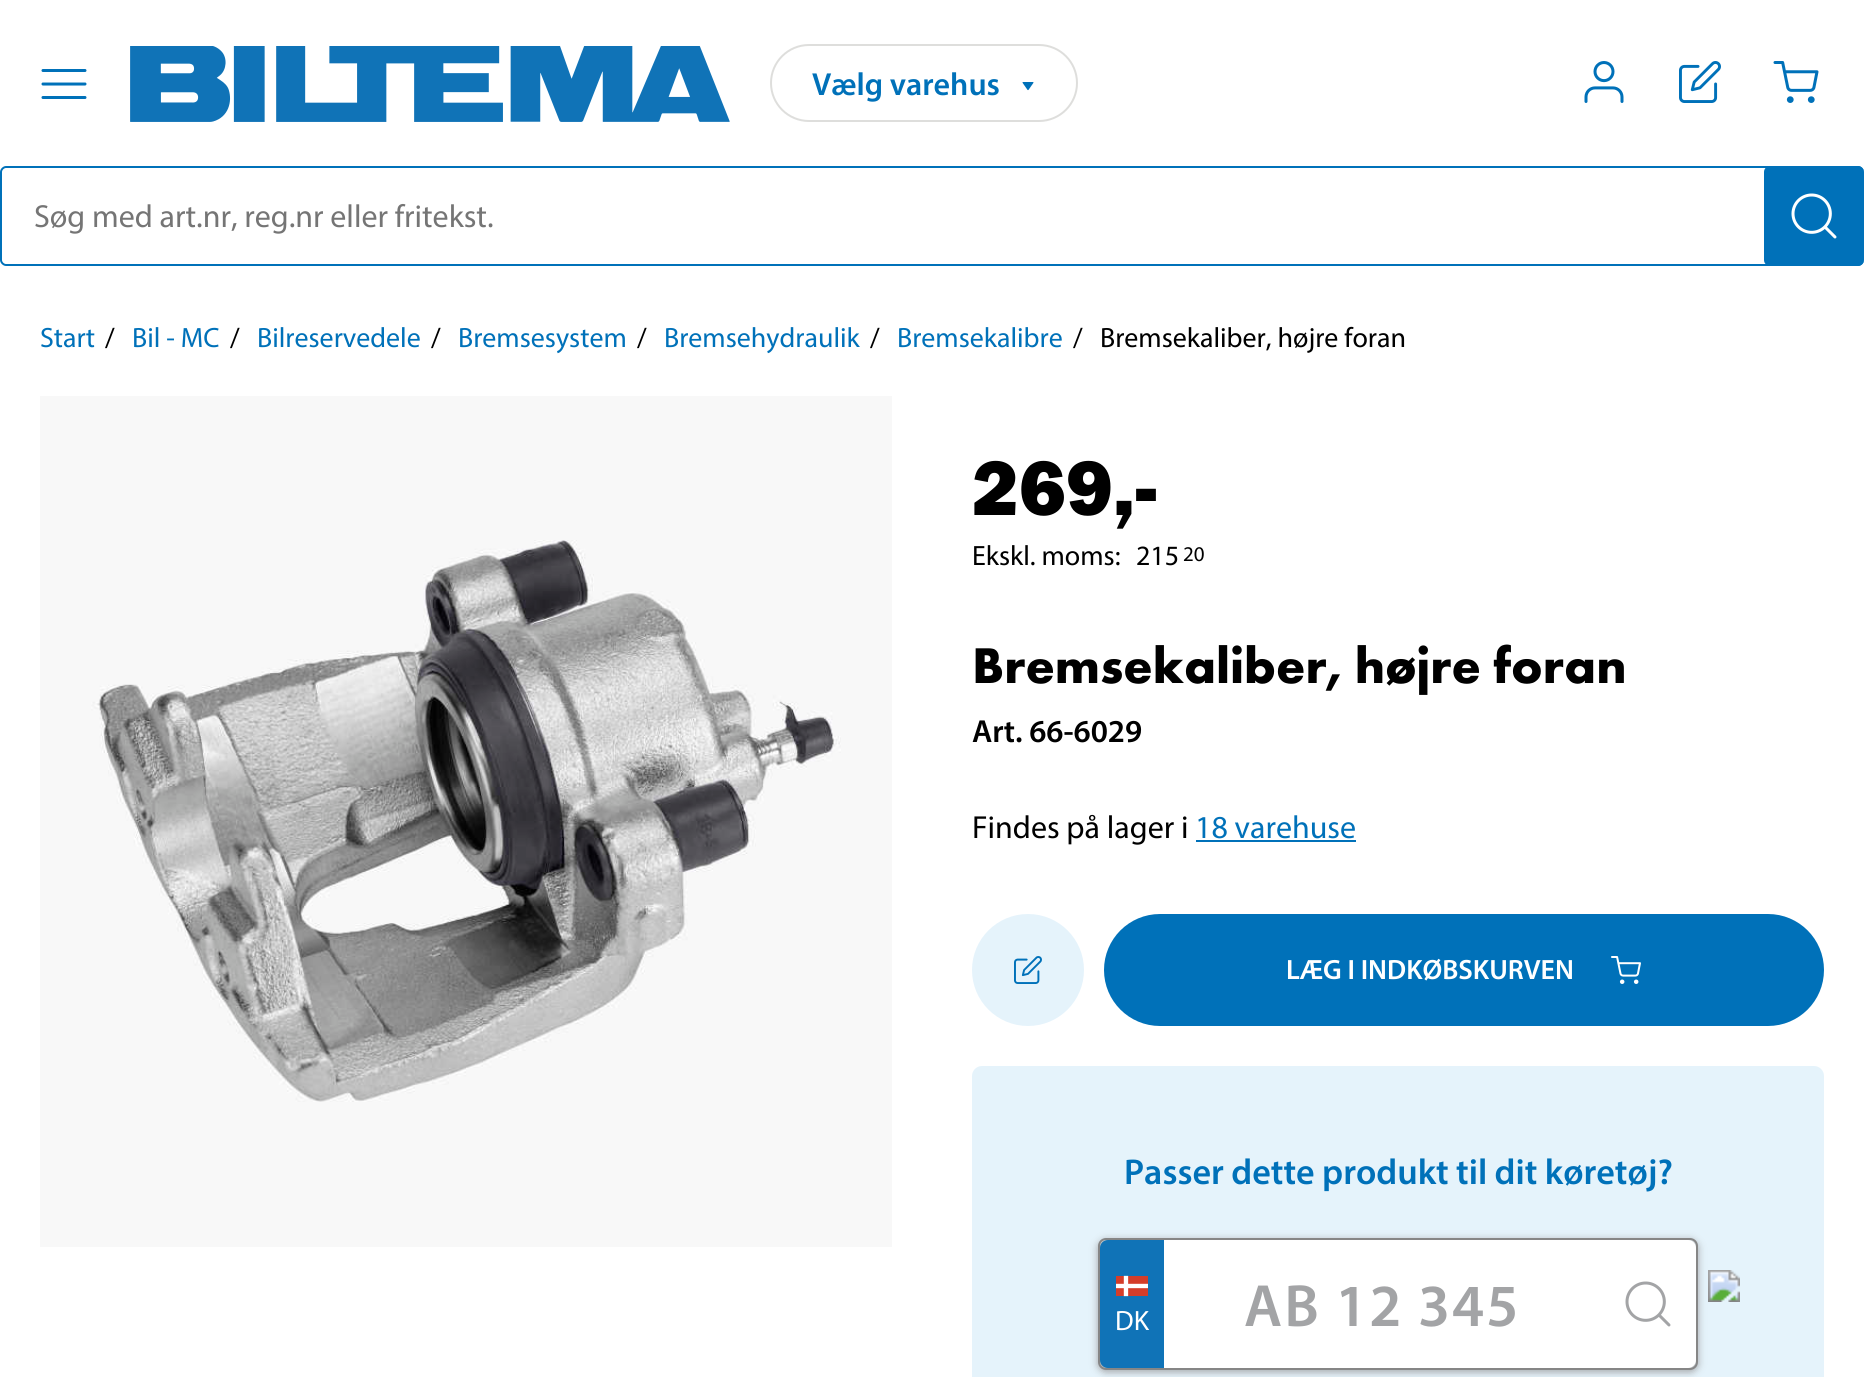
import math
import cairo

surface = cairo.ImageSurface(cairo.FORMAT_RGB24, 1864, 1377)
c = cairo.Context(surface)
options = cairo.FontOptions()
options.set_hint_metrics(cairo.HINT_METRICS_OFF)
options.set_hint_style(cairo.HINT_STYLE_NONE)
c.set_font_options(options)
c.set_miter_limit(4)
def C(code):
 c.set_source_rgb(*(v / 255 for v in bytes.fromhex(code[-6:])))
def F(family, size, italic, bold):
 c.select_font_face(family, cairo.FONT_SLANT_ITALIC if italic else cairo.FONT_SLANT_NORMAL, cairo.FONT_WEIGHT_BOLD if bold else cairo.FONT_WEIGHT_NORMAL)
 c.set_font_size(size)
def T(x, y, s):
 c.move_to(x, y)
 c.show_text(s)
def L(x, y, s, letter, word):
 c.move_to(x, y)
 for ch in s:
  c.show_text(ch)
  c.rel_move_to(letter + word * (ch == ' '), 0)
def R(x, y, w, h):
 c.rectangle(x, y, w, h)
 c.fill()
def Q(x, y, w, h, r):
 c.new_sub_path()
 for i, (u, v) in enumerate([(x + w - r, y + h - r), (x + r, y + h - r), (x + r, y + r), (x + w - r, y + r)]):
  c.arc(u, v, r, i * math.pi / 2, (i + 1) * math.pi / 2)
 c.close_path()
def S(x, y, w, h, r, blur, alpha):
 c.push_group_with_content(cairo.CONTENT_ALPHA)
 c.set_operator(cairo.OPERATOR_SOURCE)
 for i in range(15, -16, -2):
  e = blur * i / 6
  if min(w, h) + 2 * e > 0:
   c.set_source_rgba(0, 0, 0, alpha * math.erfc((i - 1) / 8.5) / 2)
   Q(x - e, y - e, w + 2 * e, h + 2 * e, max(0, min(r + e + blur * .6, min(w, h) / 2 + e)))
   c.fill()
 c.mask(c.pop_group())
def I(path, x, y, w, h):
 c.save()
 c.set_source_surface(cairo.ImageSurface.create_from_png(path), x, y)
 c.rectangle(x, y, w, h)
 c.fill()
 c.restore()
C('ffffff')
c.paint()
I('1.png',41,69,46,30)
I('2.png',130,46,600,76)
Q(771,45,306,76,38)
C('dededc')
c.stroke()
F('Myriad SemiBold',32,0,0)
C('0071b9')
T(812,95,'Vælg varehus')
I('3.png',1022,82,12,9)
I('4.png',1584,61,40,42)
I('5.png',1679,61,42,42)
I('6.png',1773,61,46,42)
c.set_fill_rule(cairo.FILL_RULE_EVEN_ODD)
c.new_path()
c.move_to(6,166)
c.line_to(1858,166)
c.curve_to(1861,166,1864,169,1864,172)
c.line_to(1864,260)
c.curve_to(1864,263,1861,266,1858,266)
c.line_to(6,266)
c.curve_to(3,266,0,263,0,260)
c.line_to(0,172)
c.curve_to(0,169,3,166,6,166)
c.close_path()
c.move_to(6,168)
c.line_to(1858,168)
c.curve_to(1861,168,1864,170,1864,172)
c.line_to(1864,260)
c.curve_to(1864,262,1861,264,1858,264)
c.line_to(6,264)
c.curve_to(4,264,2,262,2,260)
c.line_to(2,172)
c.curve_to(2,170,4,168,6,168)
c.close_path()
c.fill()
F('Myriad',32,0,0)
C('757575')
T(34,227,'Søg med art.nr, reg.nr eller fritekst.')
C('0071b9')
Q(1764,166,100,100,6)
c.fill()
I('7.png',1791,193,46,46)
F('Myriad',28,0,0)
T(40,347,'Start')
C('000000')
T(105,347,'/')
C('0071b9')
T(132,347,'Bil - MC')
C('000000')
T(230,347,'/')
C('0071b9')
T(257,347,'Bilreservedele')
C('000000')
T(431,347,'/')
C('0071b9')
T(458,347,'Bremsesystem')
C('000000')
T(637,347,'/')
C('0071b9')
T(664,347,'Bremsehydraulik')
C('000000')
T(870,347,'/')
C('0071b9')
T(897,347,'Bremsekalibre')
C('000000')
T(1073,347,'/')
T(1100,347,'Bremsekaliber, højre foran')
I('8.png',40,396,852,851)
F('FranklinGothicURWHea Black',80,0,0)
T(972,515,'269,-')
F('Myriad',28,0,0)
T(972,565,'Ekskl. moms:')
T(1136,565,'215')
F('Myriad',21,0,0)
T(1183,561,'20')
F('Futura PT',52,0,1)
T(972,683,'Bremsekaliber, højre foran')
F('Myriad SemiBold',32,0,0)
T(972,742,'Art. 66-6029')
F('Myriad',32,0,0)
T(972,838,'Findes på lager i')
C('0071b9')
T(1195,838,'18 varehuse')
R(1196,840,160,2)
C('e5f3fb')
c.new_path()
c.arc(1028,970,56,0,2 * math.pi)
c.fill()
I('9.png',1014,956,28,28)
C('0071b9')
Q(1104,914,720,112,56)
c.fill()
F('Myriad SemiBold',28,0,0)
C('ffffff')
T(1286,979,'LÆG I INDKØBSKURVEN')
I('10.png',1611,956,30,28)
C('e5f3fb')
Q(972,1066,852,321,10)
c.fill()
F('Myriad SemiBold',36,0,0)
C('0071b9')
T(1124,1184,'Passer dette produkt til dit køretøj?')
C('a3a4a6')
S(1098,1240,600,132,8,4,1)
Q(1099,1239,598,130,7)
C('868686')
c.stroke()
C('1073b7')
c.new_path()
c.move_to(1108,1240)
c.line_to(1164,1240)
c.line_to(1164,1368)
c.line_to(1108,1368)
c.curve_to(1103.5,1368,1100,1364.5,1100,1360)
c.line_to(1100,1248)
c.curve_to(1100,1243.5,1103.5,1240,1108,1240)
c.close_path()
c.fill()
I('11.png',1116,1275,32,22)
F('Myriad',28,0,0)
C('ffffff')
T(1115,1330,'DK')
R(1164,1240,436,128)
F('Myriad SemiBold',60,0,0)
C('a3a4a6')
L(1244,1326,'AB 12 345',2,0)
C('ffffff')
c.new_path()
c.move_to(1600,1240)
c.line_to(1688,1240)
c.curve_to(1692.5,1240,1696,1243.5,1696,1248)
c.line_to(1696,1360)
c.curve_to(1696,1364.5,1692.5,1368,1688,1368)
c.line_to(1600,1368)
c.close_path()
c.fill()
I('12.png',1625,1281,46,46)
I('13.png',1708,1270,32,32)
surface.write_to_png('o.png')
